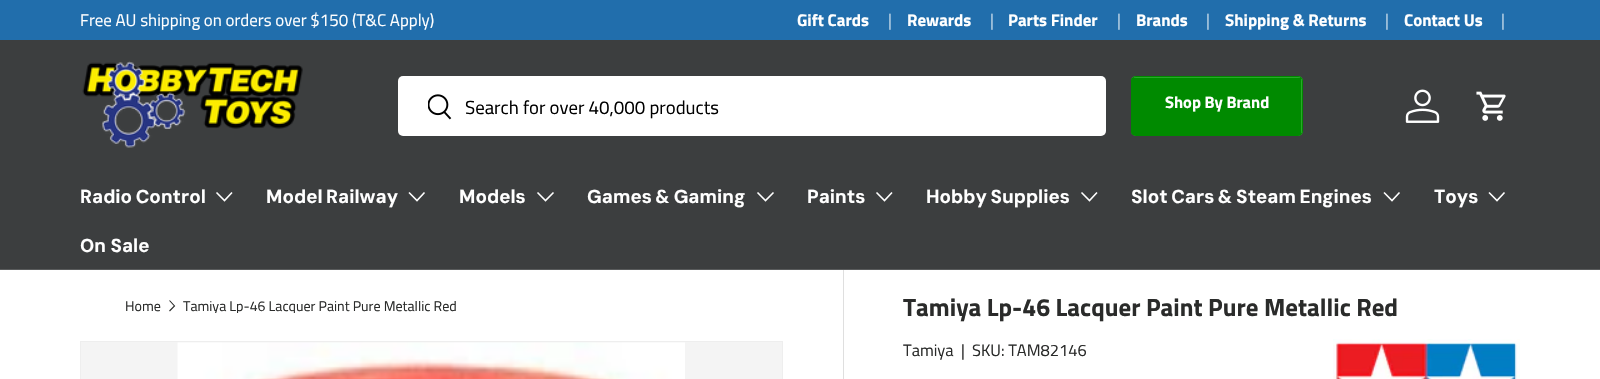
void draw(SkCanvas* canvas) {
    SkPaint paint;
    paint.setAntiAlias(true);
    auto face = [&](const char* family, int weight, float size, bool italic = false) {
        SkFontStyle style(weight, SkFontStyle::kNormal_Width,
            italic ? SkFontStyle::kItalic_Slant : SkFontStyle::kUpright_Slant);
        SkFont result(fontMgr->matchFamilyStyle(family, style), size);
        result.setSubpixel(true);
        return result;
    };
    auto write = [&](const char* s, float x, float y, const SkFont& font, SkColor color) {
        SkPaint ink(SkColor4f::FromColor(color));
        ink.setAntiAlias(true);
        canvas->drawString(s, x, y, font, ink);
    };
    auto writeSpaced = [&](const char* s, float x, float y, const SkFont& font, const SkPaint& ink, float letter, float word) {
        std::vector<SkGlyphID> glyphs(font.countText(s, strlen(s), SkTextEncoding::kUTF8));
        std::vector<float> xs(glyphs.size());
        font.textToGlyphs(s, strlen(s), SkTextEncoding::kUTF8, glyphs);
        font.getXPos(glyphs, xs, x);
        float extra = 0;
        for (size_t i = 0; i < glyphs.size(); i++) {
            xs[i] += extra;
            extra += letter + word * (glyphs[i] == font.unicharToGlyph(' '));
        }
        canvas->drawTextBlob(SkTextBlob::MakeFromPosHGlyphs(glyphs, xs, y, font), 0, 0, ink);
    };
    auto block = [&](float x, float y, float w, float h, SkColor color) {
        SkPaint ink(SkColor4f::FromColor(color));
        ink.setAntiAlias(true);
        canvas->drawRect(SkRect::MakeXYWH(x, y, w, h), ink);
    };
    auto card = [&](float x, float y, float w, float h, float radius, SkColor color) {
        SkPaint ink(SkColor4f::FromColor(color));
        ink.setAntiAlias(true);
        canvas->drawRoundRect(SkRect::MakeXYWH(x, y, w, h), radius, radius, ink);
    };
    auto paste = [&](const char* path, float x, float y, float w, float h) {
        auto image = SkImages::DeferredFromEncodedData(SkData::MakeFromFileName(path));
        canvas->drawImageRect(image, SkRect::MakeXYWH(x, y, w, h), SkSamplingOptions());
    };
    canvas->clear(SK_ColorWHITE);
    block(0, 0, 1600, 40, SkColorSetRGB(33, 110, 172));
    auto kFont1 = face("Titillium Web", 400, 16.9f);
    write("Free AU shipping on orders over $150 (T&C Apply)", 80, 26, kFont1, SK_ColorWHITE);
    auto kFont2 = face("Titillium Web", 700, 16.9f);
    write("Gift Cards", 797, 26, kFont2, SK_ColorWHITE);
    write("|", 888, 26, kFont1, SkColorSetRGB(188, 212, 230));
    write("Rewards", 907, 26, kFont2, SK_ColorWHITE);
    write("|", 990, 26, kFont1, SkColorSetRGB(188, 212, 230));
    write("Parts Finder", 1008, 26, kFont2, SK_ColorWHITE);
    write("|", 1117, 26, kFont1, SkColorSetRGB(188, 212, 230));
    write("Brands", 1136, 26, kFont2, SK_ColorWHITE);
    write("|", 1206, 26, kFont1, SkColorSetRGB(188, 212, 230));
    write("Shipping & Returns", 1225, 26, kFont2, SK_ColorWHITE);
    write("|", 1385, 26, kFont1, SkColorSetRGB(188, 212, 230));
    write("Contact Us", 1404, 26, kFont2, SK_ColorWHITE);
    write("|", 1501, 26, kFont1, SkColorSetRGB(188, 212, 230));
    block(0, 40, 1600, 229, SkColorSetRGB(60, 62, 63));
    block(0, 269, 1600, 1, SkColorSetRGB(89, 91, 92));
    paste("pic1.png", 82, 61, 221, 87);
    card(398, 76, 708, 60, 5, SK_ColorWHITE);
    paste("pic2.png", 428, 94, 24, 26);
    auto kFont3 = face("Titillium Web", 400, 18.75f);
    write("Search for over 40,000 products", 465, 114, kFont3, SK_ColorBLACK);
    card(1131, 76, 172, 60, 5, SkColorSetRGB(41, 168, 41));
    canvas->save();
    canvas->clipPath(SkPathBuilder().moveTo(1136, 76).lineTo(1298, 76).cubicTo(1301, 76, 1303, 78, 1303, 81).lineTo(1303, 131).cubicTo(1303, 134, 1301, 136, 1298, 136).lineTo(1136, 136).cubicTo(1133, 136, 1131, 134, 1131, 131).lineTo(1131, 81).cubicTo(1131, 78, 1133, 76, 1136, 76).close().detach(), true);
    {
        const SkColor colors[] = {SkColorSetRGB(41, 168, 41), SkColorSetRGB(0, 138, 0), SkColorSetRGB(0, 138, 0)};
        const float stops[] = {0.6f, 0.6f, 1};
        const SkPoint ends[] = {{803, 45}, {1293, 167}};
        paint.setShader(SkGradientShader::MakeLinear(ends, colors, stops, 3, SkTileMode::kClamp));
        paint.setAlpha(255);
    }
    canvas->drawRect(SkRect::MakeXYWH(1131, 78, 170, 57), paint);
    canvas->restore();
    paint.setStyle(SkPaint::kStroke_Style);
    paint.setStrokeWidth(1);
    paint.setShader(nullptr);
    paint.setColor(SkColorSetRGB(0, 138, 0));
    canvas->drawRoundRect(SkRect::MakeXYWH(1131.5f, 76.5f, 171, 59), 4.5f, 4.5f, paint);
    auto kFont4 = face("Titillium Web", 700, 16.5f);
    write("Shop By Brand", 1165, 108, kFont4, SK_ColorWHITE);
    paste("pic3.png", 1405, 89, 35, 34);
    paste("pic4.png", 1476, 91, 30, 30);
    auto kFont5 = face("DM Sans", 700, 18.75f);
    paint.setStyle(SkPaint::kFill_Style);
    paint.setColor(SK_ColorWHITE);
    writeSpaced("Radio Control", 80, 203, kFont5, paint, 0, -1);
    paint.setStyle(SkPaint::kStroke_Style);
    paint.setStrokeWidth(1.6f);
    canvas->drawPath(SkPathBuilder().moveTo(232, 192.5f).lineTo(224.5f, 200.5f).lineTo(216.5f, 192.5f).detach(), paint);
    paint.setStyle(SkPaint::kFill_Style);
    writeSpaced("Model Railway", 266, 203, kFont5, paint, 0, -1);
    paint.setStyle(SkPaint::kStroke_Style);
    canvas->drawPath(SkPathBuilder().moveTo(424.5f, 192.5f).lineTo(417, 200.5f).lineTo(409, 192.5f).detach(), paint);
    write("Models", 459, 203, kFont5, SK_ColorWHITE);
    canvas->drawPath(SkPathBuilder().moveTo(553.5f, 192.5f).lineTo(545.5f, 200.5f).lineTo(537.5f, 192.5f).detach(), paint);
    paint.setStyle(SkPaint::kFill_Style);
    writeSpaced("Games & Gaming", 587, 203, kFont5, paint, 0, -1);
    paint.setStyle(SkPaint::kStroke_Style);
    canvas->drawPath(SkPathBuilder().moveTo(773.5f, 192.5f).lineTo(765.5f, 200.5f).lineTo(757.5f, 192.5f).detach(), paint);
    write("Paints", 807, 203, kFont5, SK_ColorWHITE);
    canvas->drawPath(SkPathBuilder().moveTo(892, 192.5f).lineTo(884.5f, 200.5f).lineTo(876.5f, 192.5f).detach(), paint);
    paint.setStyle(SkPaint::kFill_Style);
    writeSpaced("Hobby Supplies", 926, 203, kFont5, paint, 0, -1);
    paint.setStyle(SkPaint::kStroke_Style);
    canvas->drawPath(SkPathBuilder().moveTo(1097, 192.5f).lineTo(1089.5f, 200.5f).lineTo(1081.5f, 192.5f).detach(), paint);
    paint.setStyle(SkPaint::kFill_Style);
    writeSpaced("Slot Cars & Steam Engines", 1131, 203, kFont5, paint, 0, -1);
    paint.setStyle(SkPaint::kStroke_Style);
    canvas->drawPath(SkPathBuilder().moveTo(1399.5f, 192.5f).lineTo(1392, 200.5f).lineTo(1384, 192.5f).detach(), paint);
    write("Toys", 1434, 203, kFont5, SK_ColorWHITE);
    canvas->drawPath(SkPathBuilder().moveTo(1504.5f, 192.5f).lineTo(1497, 200.5f).lineTo(1489, 192.5f).detach(), paint);
    write("On Sale", 80, 252, kFont5, SK_ColorWHITE);
    auto kFont6 = face("Titillium Web", 400, 14.1f);
    write("Home", 125, 311, kFont6, SkColorSetRGB(42, 43, 42));
    paint.setStrokeWidth(1.1f);
    paint.setColor(SkColorSetRGB(42, 43, 42));
    canvas->drawPath(SkPathBuilder().moveTo(169.5f, 300.5f).lineTo(174.5f, 306).lineTo(169.5f, 311).detach(), paint);
    canvas->save();
    canvas->clipRect(SkRect::MakeXYWH(183, 299, 273, 14));
    write("Tamiya Lp-46 Lacquer Paint Pure Metallic Red", 183, 311, kFont6, SkColorSetRGB(42, 43, 42));
    canvas->restore();
    paint.setStyle(SkPaint::kFill_Style);
    paint.setColor(SkColorSetRGB(244, 244, 244));
    canvas->drawRect(SkRect::MakeXYWH(80.5f, 341.5f, 702, 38), paint);
    paint.setStyle(SkPaint::kStroke_Style);
    paint.setStrokeWidth(1);
    paint.setColor(SkColorSetRGB(238, 238, 238));
    canvas->drawRect(SkRect::MakeXYWH(80.5f, 341.5f, 702, 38), paint);
    paste("pic5.png", 177, 342, 508, 37);
    block(843, 270, 1, 109, SkColorSetRGB(223, 223, 223));
    auto kFont7 = face("Titillium Web", 700, 24.9f);
    write("Tamiya Lp-46 Lacquer Paint Pure Metallic Red", 903, 316, kFont7, SkColorSetRGB(42, 43, 42));
    auto kFont8 = face("Titillium Web", 400, 16.5f);
    write("Tamiya", 903, 356, kFont8, SkColorSetRGB(42, 43, 42));
    write("|", 961, 356, kFont8, SkColorSetRGB(42, 43, 42));
    write("SKU: TAM82146", 972, 356, kFont8, SkColorSetRGB(42, 43, 42));
    paste("pic6.png", 1333, 339, 187, 40);
}
